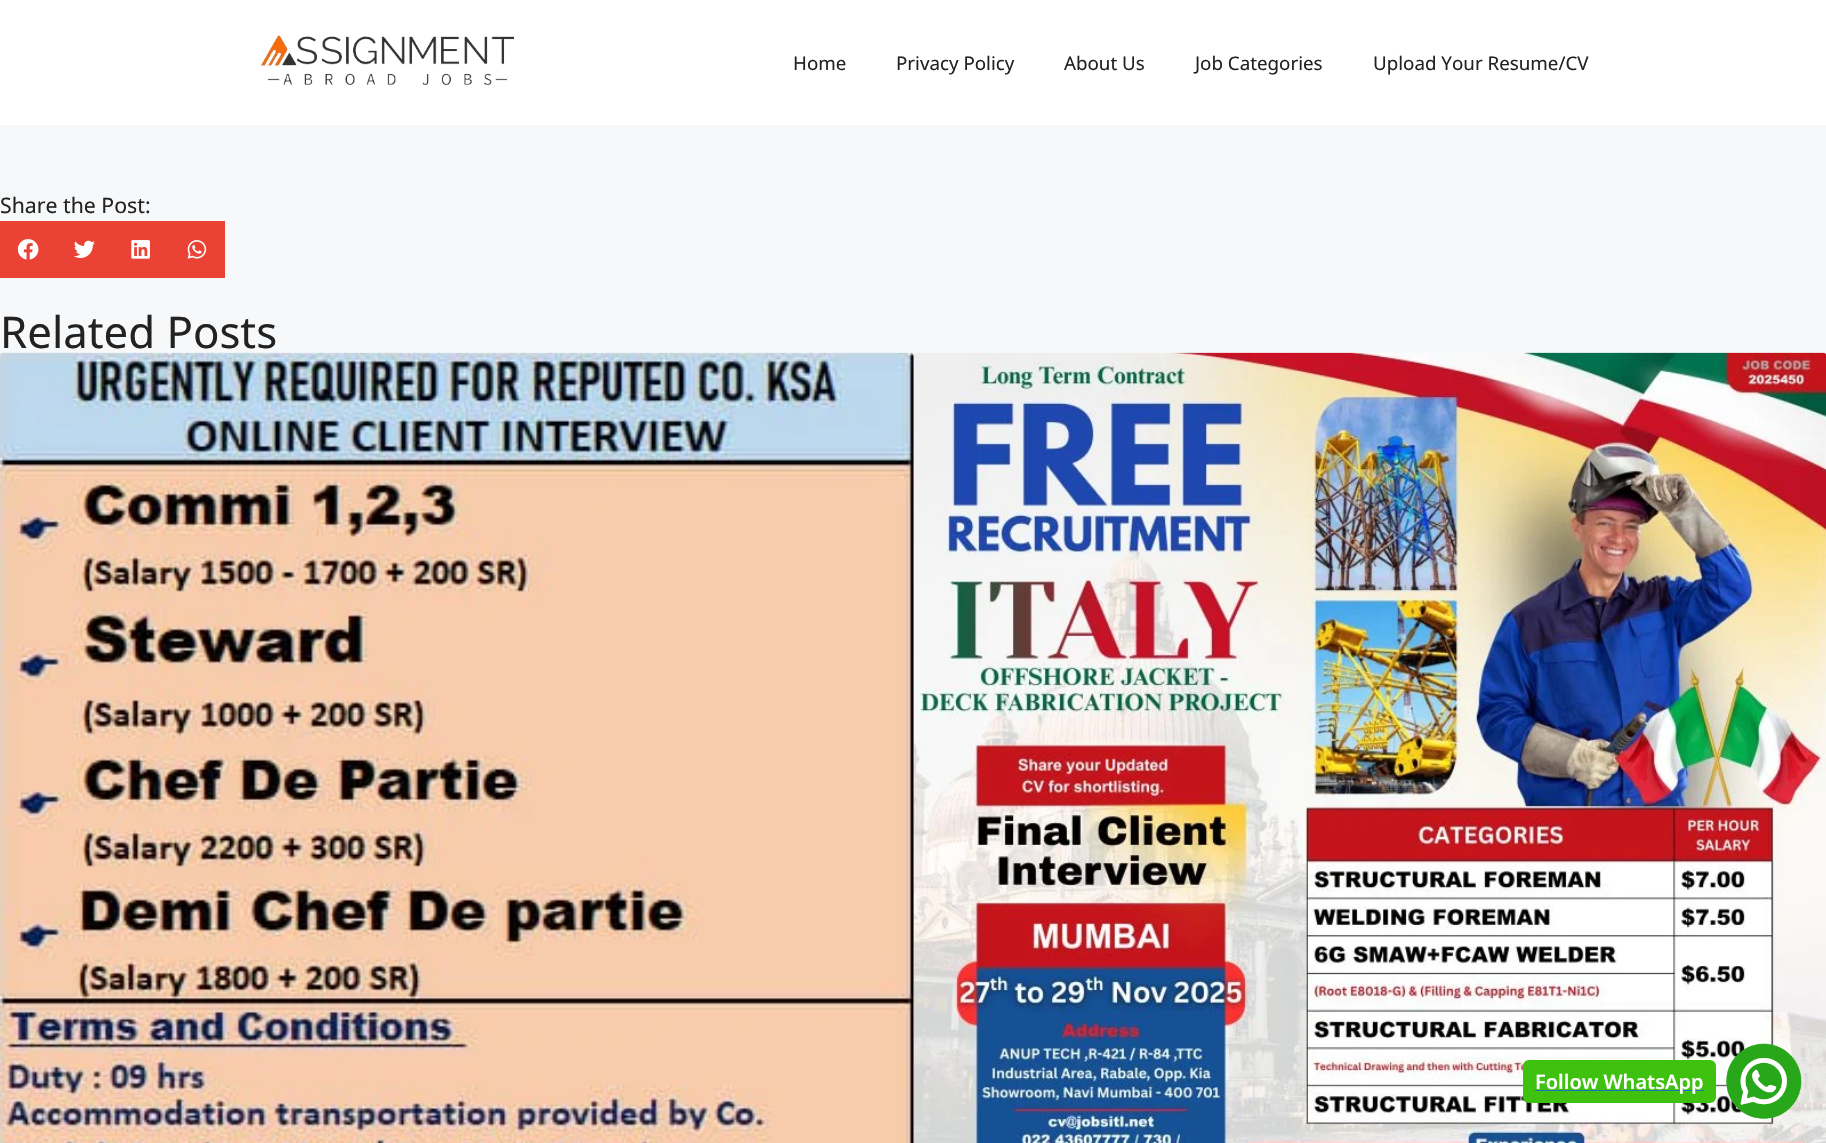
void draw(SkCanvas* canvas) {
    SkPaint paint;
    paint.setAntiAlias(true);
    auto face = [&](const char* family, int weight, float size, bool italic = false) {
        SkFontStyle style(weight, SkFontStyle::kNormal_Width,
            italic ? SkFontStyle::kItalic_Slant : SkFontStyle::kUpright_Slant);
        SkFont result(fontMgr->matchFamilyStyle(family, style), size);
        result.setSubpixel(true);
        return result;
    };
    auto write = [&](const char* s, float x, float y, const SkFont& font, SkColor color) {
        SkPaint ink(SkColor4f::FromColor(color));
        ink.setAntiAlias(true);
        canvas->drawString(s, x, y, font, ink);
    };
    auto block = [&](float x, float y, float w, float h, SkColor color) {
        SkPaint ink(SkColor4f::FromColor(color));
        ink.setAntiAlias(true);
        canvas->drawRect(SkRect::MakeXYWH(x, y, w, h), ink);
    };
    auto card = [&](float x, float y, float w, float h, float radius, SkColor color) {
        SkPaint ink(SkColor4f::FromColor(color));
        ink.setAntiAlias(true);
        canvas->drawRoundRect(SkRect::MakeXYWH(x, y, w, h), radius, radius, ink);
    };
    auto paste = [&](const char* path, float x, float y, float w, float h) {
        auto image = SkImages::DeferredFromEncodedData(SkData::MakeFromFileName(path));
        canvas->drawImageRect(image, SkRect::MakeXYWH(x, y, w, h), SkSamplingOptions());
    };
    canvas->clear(SkColorSetRGB(247, 248, 249));
    block(0, 0, 1826, 125, SK_ColorWHITE);
    paste("pic1.png", 261, 35, 253, 50);
    auto kFont1 = face("Noto Sans", 400, 18.75f);
    write("Home", 793, 70, kFont1, SkColorSetRGB(34, 34, 34));
    write("Privacy Policy", 896, 70, kFont1, SkColorSetRGB(34, 34, 34));
    write("About Us", 1064, 70, kFont1, SkColorSetRGB(34, 34, 34));
    write("Job Categories", 1195, 70, kFont1, SkColorSetRGB(34, 34, 34));
    write("Upload Your Resume/CV", 1373, 70, kFont1, SkColorSetRGB(34, 34, 34));
    auto kFont2 = face("Noto Sans", 400, 21.25f);
    write("Share the Post:", 0, 213, kFont2, SkColorSetRGB(34, 34, 34));
    block(0, 221, 225, 57, SkColorSetRGB(234, 67, 53));
    paste("pic2.png", 18, 239, 21, 21);
    paste("pic3.png", 74, 240, 21, 18);
    paste("pic4.png", 131, 240, 19, 19);
    paste("pic5.png", 187, 240, 20, 19);
    auto kFont3 = face("Noto Sans", 400, 43.75f);
    write("Related Posts", 0, 348, kFont3, SkColorSetRGB(34, 34, 34));
    card(0, 353, 914, 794, 4, SK_ColorWHITE);
    paste("pic6.png", 0, 352, 914, 791);
    paste("pic7.png", 914, 352, 912, 791);
    card(1523, 1060, 193, 43, 6, SkColorSetRGB(63, 194, 15));
    block(1535, 1090, 169, 1, SkColorSetRGB(30, 115, 190));
    auto kFont4 = face("Noto Sans", 600, 20);
    write("Follow WhatsApp", 1535, 1089, kFont4, SK_ColorWHITE);
    paste("pic8.png", 1726, 1043, 76, 76);
}
